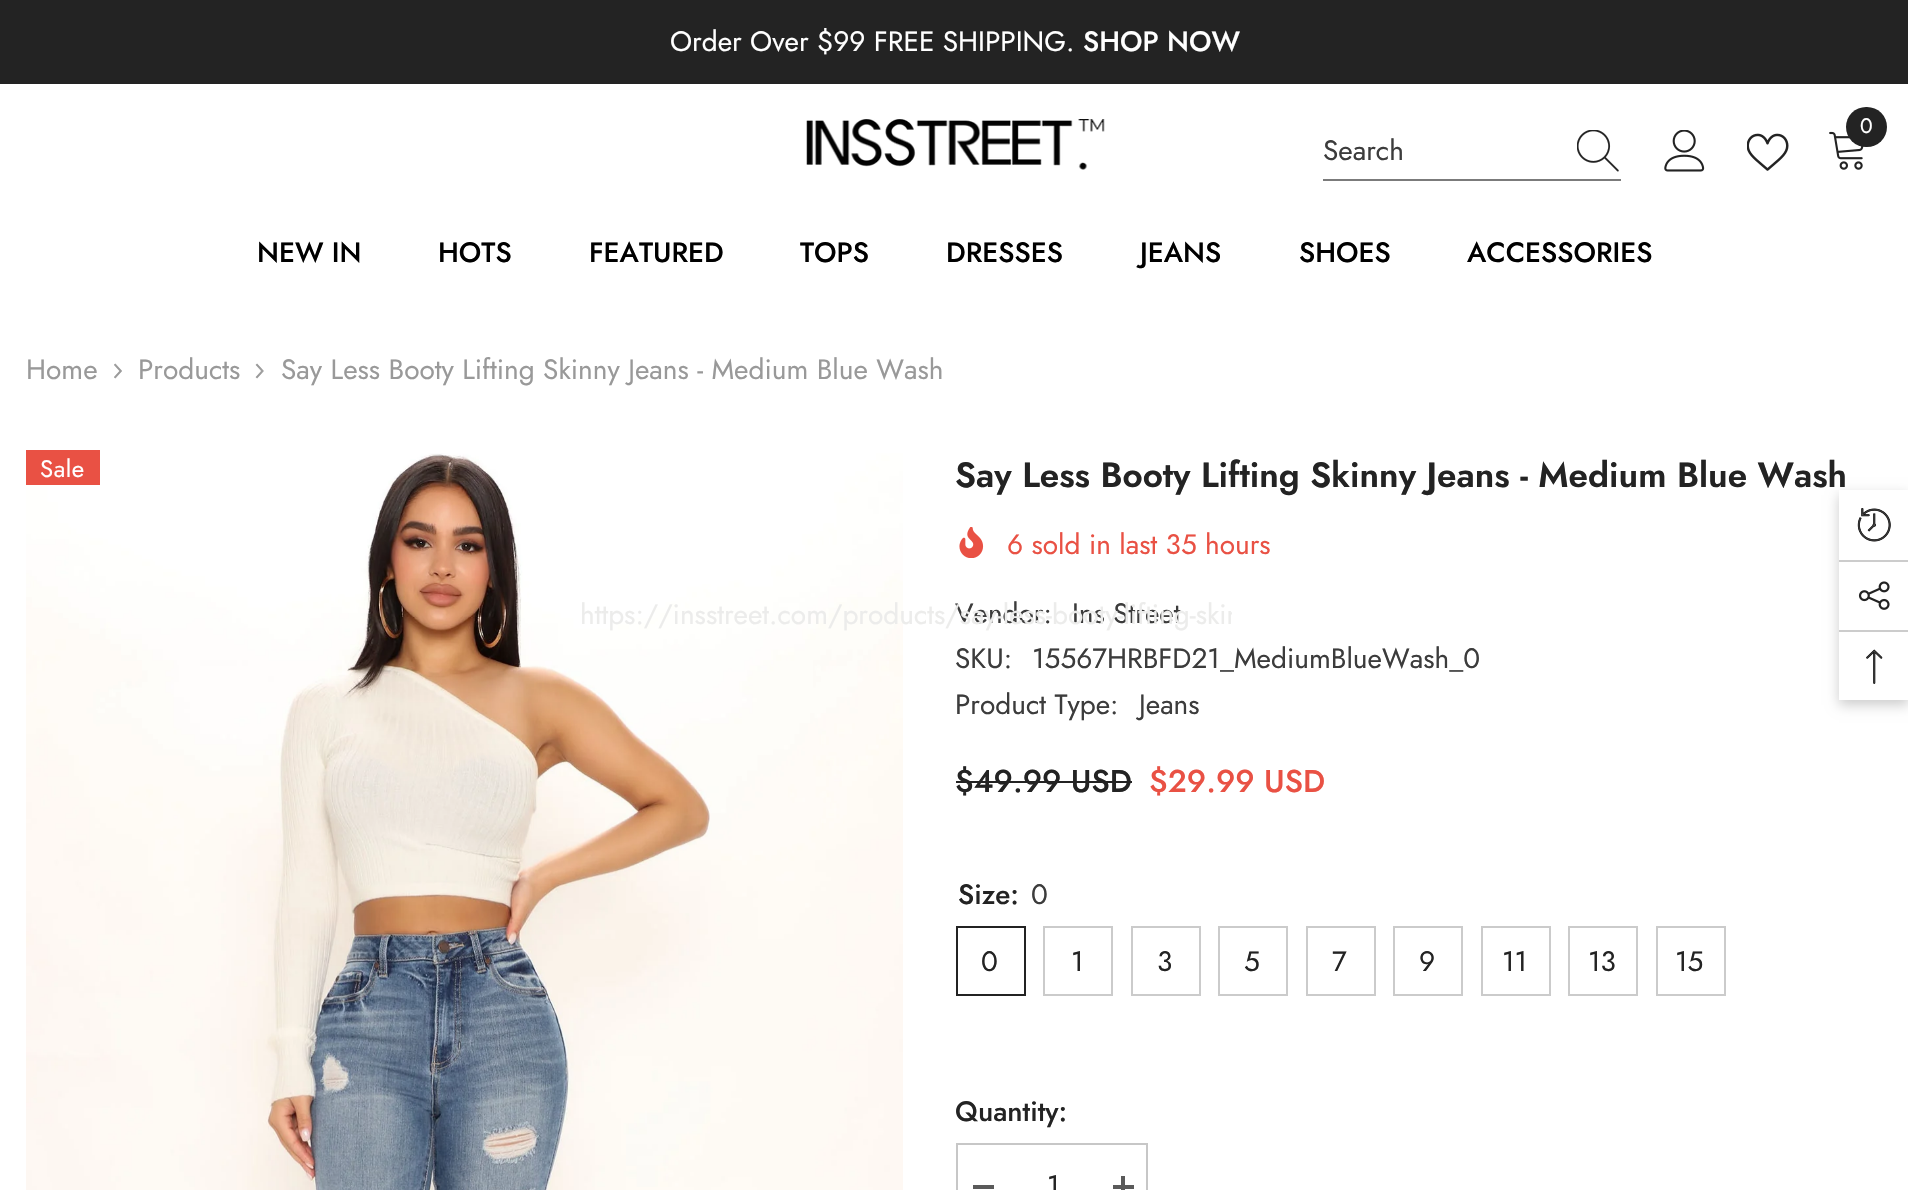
void draw(SkCanvas* canvas) {
    SkPaint paint;
    paint.setAntiAlias(true);
    auto face = [&](const char* family, int weight, float size, bool italic = false) {
        SkFontStyle style(weight, SkFontStyle::kNormal_Width,
            italic ? SkFontStyle::kItalic_Slant : SkFontStyle::kUpright_Slant);
        SkFont result(fontMgr->matchFamilyStyle(family, style), size);
        result.setSubpixel(true);
        return result;
    };
    auto write = [&](const char* s, float x, float y, const SkFont& font, SkColor color) {
        SkPaint ink(SkColor4f::FromColor(color));
        ink.setAntiAlias(true);
        canvas->drawString(s, x, y, font, ink);
    };
    auto writeSpaced = [&](const char* s, float x, float y, const SkFont& font, const SkPaint& ink, float letter, float word) {
        std::vector<SkGlyphID> glyphs(font.countText(s, strlen(s), SkTextEncoding::kUTF8));
        std::vector<float> xs(glyphs.size());
        font.textToGlyphs(s, strlen(s), SkTextEncoding::kUTF8, glyphs);
        font.getXPos(glyphs, xs, x);
        float extra = 0;
        for (size_t i = 0; i < glyphs.size(); i++) {
            xs[i] += extra;
            extra += letter + word * (glyphs[i] == font.unicharToGlyph(' '));
        }
        canvas->drawTextBlob(SkTextBlob::MakeFromPosHGlyphs(glyphs, xs, y, font), 0, 0, ink);
    };
    auto block = [&](float x, float y, float w, float h, SkColor color) {
        SkPaint ink(SkColor4f::FromColor(color));
        ink.setAntiAlias(true);
        canvas->drawRect(SkRect::MakeXYWH(x, y, w, h), ink);
    };
    auto card = [&](float x, float y, float w, float h, float radius, SkColor color) {
        SkPaint ink(SkColor4f::FromColor(color));
        ink.setAntiAlias(true);
        canvas->drawRoundRect(SkRect::MakeXYWH(x, y, w, h), radius, radius, ink);
    };
    auto paste = [&](const char* path, float x, float y, float w, float h) {
        auto image = SkImages::DeferredFromEncodedData(SkData::MakeFromFileName(path));
        canvas->drawImageRect(image, SkRect::MakeXYWH(x, y, w, h), SkSamplingOptions());
    };
    canvas->clear(SK_ColorWHITE);
    block(0, 0, 1908, 84, SkColorSetRGB(35, 35, 35));
    auto kFont1 = face("Jost", 400, 28);
    write("Order Over $99 FREE SHIPPING.", 670, 51, kFont1, SK_ColorWHITE);
    auto kFont2 = face("Jost", 500, 28);
    write("SHOP NOW", 1083, 51, kFont2, SK_ColorWHITE);
    paste("pic1.png", 806, 119, 299, 51);
    paste("pic2.png", 1829, 131, 35, 39);
    card(1846, 107, 41, 40, 20, SkColorSetRGB(35, 35, 35));
    auto kFont3 = face("Jost", 400, 21);
    write("0", 1860, 133, kFont3, SK_ColorWHITE);
    paste("pic3.png", 1664, 130, 41, 42);
    paste("pic4.png", 1747, 133, 42, 38);
    block(1323, 179, 298, 2, SkColorSetRGB(123, 123, 123));
    write("Search", 1323, 160, kFont1, SkColorSetRGB(60, 60, 60));
    paste("pic5.png", 1577, 130, 42, 42);
    write("NEW IN", 257, 262, kFont2, SK_ColorBLACK);
    write("HOTS", 438, 262, kFont2, SK_ColorBLACK);
    write("FEATURED", 589, 262, kFont2, SK_ColorBLACK);
    write("TOPS", 800, 262, kFont2, SK_ColorBLACK);
    write("DRESSES", 946, 262, kFont2, SK_ColorBLACK);
    write("JEANS", 1140, 262, kFont2, SK_ColorBLACK);
    write("SHOES", 1299, 262, kFont2, SK_ColorBLACK);
    write("ACCESSORIES", 1467, 262, kFont2, SK_ColorBLACK);
    write("Home", 26, 379, kFont1, SkColorSetRGB(153, 153, 153));
    paste("pic6.png", 114, 363, 8, 16);
    write("Products", 138, 379, kFont1, SkColorSetRGB(153, 153, 153));
    paste("pic7.png", 255, 363, 9, 16);
    write("Say Less Booty Lifting Skinny Jeans - Medium Blue Wash", 281, 379, kFont1, SkColorSetRGB(153, 153, 153));
    paste("pic8.png", 26, 453, 877, 737);
    block(26, 450, 74, 35, SkColorSetRGB(233, 81, 68));
    auto kFont4 = face("Jost", 400, 24);
    paint.setColor(SK_ColorWHITE);
    writeSpaced("Sale", 40, 477, kFont4, paint, 0.5f, 0);
    auto kFont5 = face("Jost", 600, 35);
    write("Say Less Booty Lifting Skinny Jeans - Medium Blue Wash", 955, 487, kFont5, SkColorSetRGB(35, 35, 35));
    paste("pic9.png", 959, 527, 25, 31);
    write("6 sold in last 35 hours", 1007, 554, kFont1, SkColorSetRGB(233, 81, 68));
    write("Vendor:", 955, 623, kFont1, SkColorSetRGB(60, 60, 60));
    write("Ins Street", 1072, 623, kFont1, SkColorSetRGB(60, 60, 60));
    canvas->save();
    canvas->clipRect(SkRect::MakeXYWH(581, 592, 651, 45));
    write("https://insstreet.com/products/say-less-booty-lifting-skin", 580, 624, kFont1, SkColorSetRGB(236, 236, 235));
    canvas->restore();
    write("Quantity:", 955, 1121, kFont2, SkColorSetRGB(35, 35, 35));
    paint.setStyle(SkPaint::kStroke_Style);
    paint.setStrokeWidth(2);
    paint.setColor(SkColorSetRGB(199, 199, 199));
    canvas->drawRect(SkRect::MakeXYWH(957, 1144, 190, 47), paint);
    block(973, 1185, 21, 4, SkColorSetRGB(90, 90, 90));
    write("1", 1047, 1195, kFont1, SkColorSetRGB(35, 35, 35));
    block(1113, 1185, 21, 4, SkColorSetRGB(90, 90, 90));
    block(1121, 1176, 4, 14, SkColorSetRGB(90, 90, 90));
    write("SKU:", 955, 668, kFont1, SkColorSetRGB(60, 60, 60));
    write("15567HRBFD21_MediumBlueWash_0", 1032, 668, kFont1, SkColorSetRGB(60, 60, 60));
    write("Product Type:", 955, 714, kFont1, SkColorSetRGB(60, 60, 60));
    write("Jeans", 1139, 714, kFont1, SkColorSetRGB(60, 60, 60));
    auto kFont6 = face("Jost", 500, 31.5f);
    write("$49.99 USD", 955, 792, kFont6, SkColorSetRGB(35, 35, 35));
    block(956, 781, 176, 2, SkColorSetRGB(35, 35, 35));
    write("$29.99 USD", 1149, 792, kFont6, SkColorSetRGB(233, 81, 68));
    write("Size:", 958, 904, kFont2, SkColorSetRGB(35, 35, 35));
    write("0", 1031, 904, kFont1, SkColorSetRGB(60, 60, 60));
    paint.setColor(SkColorSetRGB(35, 35, 35));
    canvas->drawRect(SkRect::MakeXYWH(957, 927, 68, 68), paint);
    write("0", 981, 971, kFont1, SkColorSetRGB(35, 35, 35));
    paint.setColor(SkColorSetRGB(203, 203, 203));
    canvas->drawRect(SkRect::MakeXYWH(1044, 927, 68, 68), paint);
    write("1", 1071, 971, kFont1, SkColorSetRGB(35, 35, 35));
    canvas->drawRect(SkRect::MakeXYWH(1132, 927, 68, 68), paint);
    write("3", 1157, 971, kFont1, SkColorSetRGB(35, 35, 35));
    canvas->drawRect(SkRect::MakeXYWH(1219, 927, 68, 68), paint);
    write("5", 1244, 971, kFont1, SkColorSetRGB(35, 35, 35));
    canvas->drawRect(SkRect::MakeXYWH(1307, 927, 68, 68), paint);
    write("7", 1332, 971, kFont1, SkColorSetRGB(35, 35, 35));
    canvas->drawRect(SkRect::MakeXYWH(1394, 927, 68, 68), paint);
    write("9", 1419, 971, kFont1, SkColorSetRGB(35, 35, 35));
    canvas->drawRect(SkRect::MakeXYWH(1482, 927, 68, 68), paint);
    write("11", 1502, 971, kFont1, SkColorSetRGB(35, 35, 35));
    canvas->drawRect(SkRect::MakeXYWH(1569, 927, 68, 68), paint);
    write("13", 1588, 971, kFont1, SkColorSetRGB(35, 35, 35));
    canvas->drawRect(SkRect::MakeXYWH(1657, 927, 68, 68), paint);
    write("15", 1675, 971, kFont1, SkColorSetRGB(35, 35, 35));
    paint.setStyle(SkPaint::kFill_Style);
    paint.setColor(SkColorSetARGB(51, 0, 0, 0));
    paint.setMaskFilter(SkMaskFilter::MakeBlur(kNormal_SkBlurStyle, 6));
    canvas->drawRect(SkRect::MakeXYWH(1839, 495, 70, 210), paint);
    paint.setMaskFilter(nullptr);
    block(1839, 490, 69, 210, SK_ColorWHITE);
    paste("pic10.png", 1857, 508, 34, 34);
    block(1839, 560, 69, 2, SkColorSetRGB(204, 204, 204));
    paste("pic11.png", 1858, 581, 32, 29);
    block(1839, 630, 69, 2, SkColorSetRGB(204, 204, 204));
    paste("pic12.png", 1866, 649, 17, 35);
}
